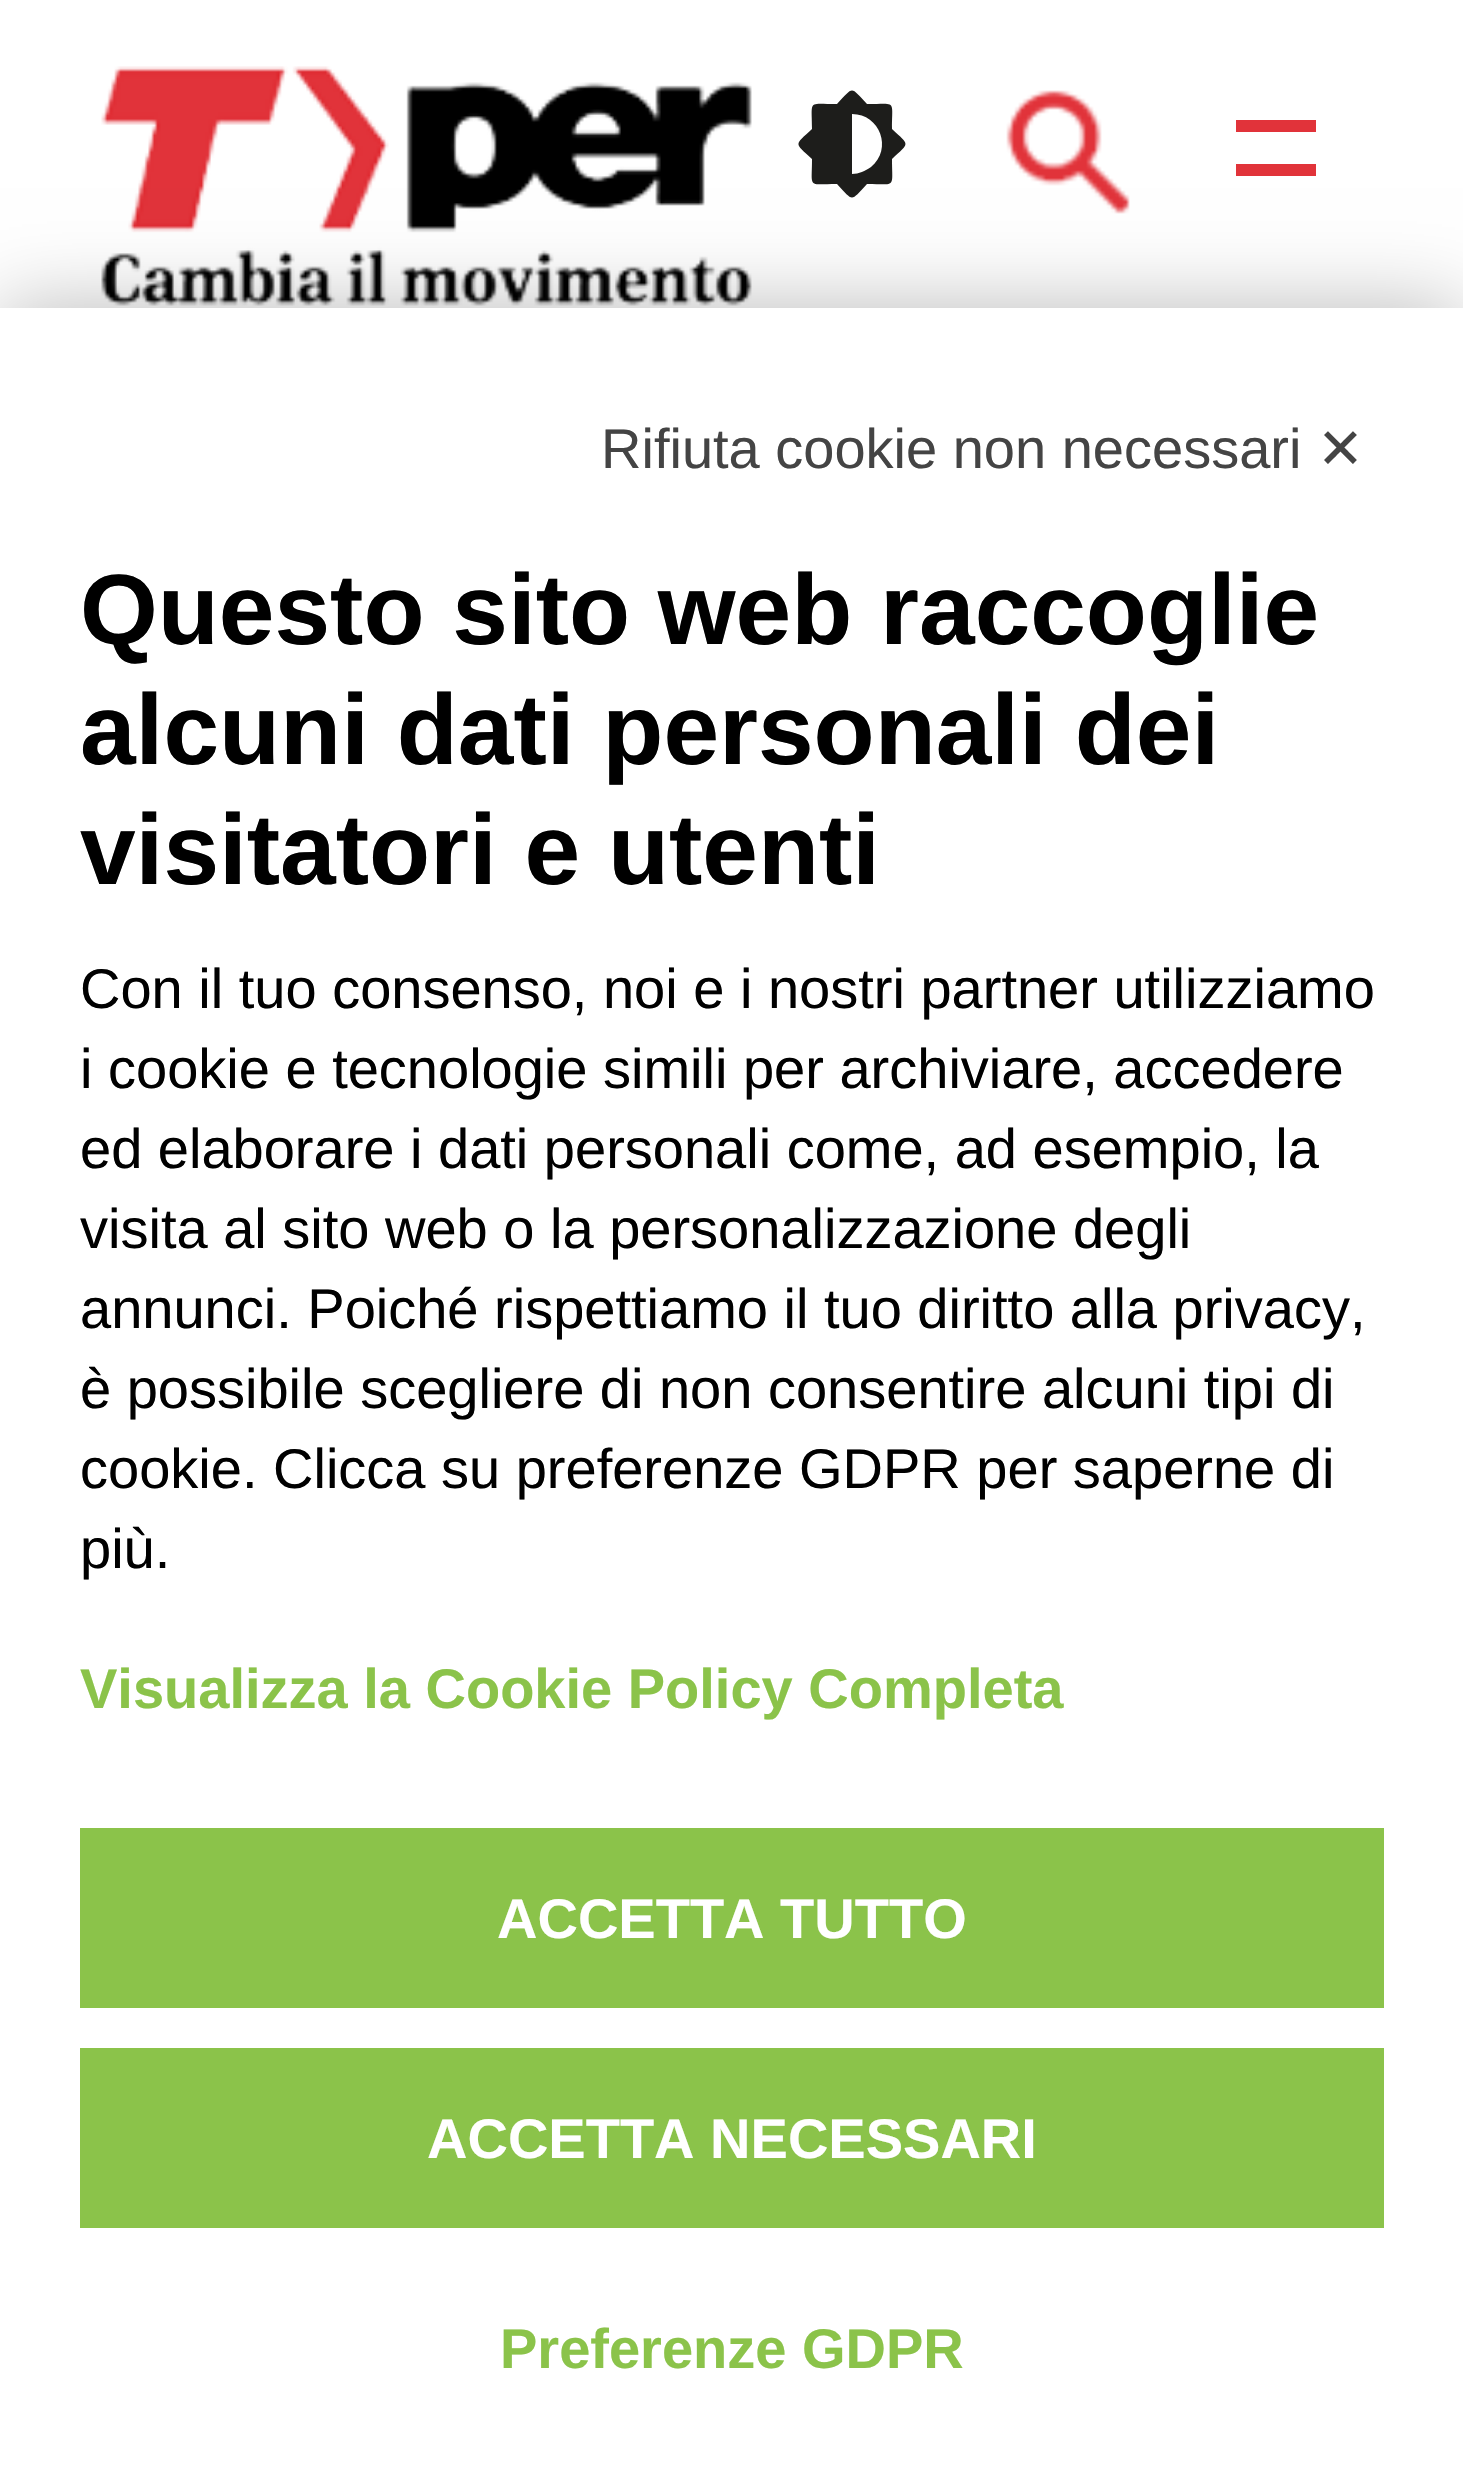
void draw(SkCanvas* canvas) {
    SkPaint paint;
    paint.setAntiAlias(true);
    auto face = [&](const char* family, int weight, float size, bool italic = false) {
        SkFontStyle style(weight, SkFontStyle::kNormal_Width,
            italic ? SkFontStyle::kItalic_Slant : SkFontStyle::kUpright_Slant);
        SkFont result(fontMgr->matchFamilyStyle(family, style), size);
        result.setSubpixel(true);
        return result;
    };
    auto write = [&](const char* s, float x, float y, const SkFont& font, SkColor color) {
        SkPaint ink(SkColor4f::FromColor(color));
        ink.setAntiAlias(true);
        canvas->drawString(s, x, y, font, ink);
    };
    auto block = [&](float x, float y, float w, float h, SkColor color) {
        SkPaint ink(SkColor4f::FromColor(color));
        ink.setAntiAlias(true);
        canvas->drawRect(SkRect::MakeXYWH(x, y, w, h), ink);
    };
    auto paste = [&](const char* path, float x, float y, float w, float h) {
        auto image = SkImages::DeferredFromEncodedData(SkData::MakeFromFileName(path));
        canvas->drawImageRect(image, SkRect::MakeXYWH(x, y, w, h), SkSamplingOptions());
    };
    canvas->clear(SK_ColorWHITE);
    paste("pic1.png", 101, 66, 651, 240);
    paste("pic2.png", 1006, 90, 124, 124);
    block(1236, 120, 80, 12, SkColorSetRGB(225, 51, 58));
    block(1236, 164, 80, 12, SkColorSetRGB(225, 51, 58));
    paint.setColor(SkColorSetRGB(29, 29, 27));
    canvas->drawPath(SkPathBuilder().moveTo(837, 184).cubicTo(854, 202, 850, 202, 867, 184).cubicTo(897, 184, 892, 189, 892, 159).cubicTo(910, 142, 910, 146, 892, 129).cubicTo(892, 99, 897, 104, 867, 104).cubicTo(850, 86, 854, 86, 837, 104).cubicTo(807, 104, 812, 99, 812, 129).cubicTo(794, 146, 794, 142, 812, 159).cubicTo(812, 189, 807, 184, 837, 184).close().moveTo(852, 174).lineTo(852, 114).cubicTo(880, 114, 893, 149, 871, 167).cubicTo(865, 171, 859, 174, 852, 174).close().detach(), paint);
    paint.setColor(SkColorSetARGB(69, 0, 0, 0));
    paint.setMaskFilter(SkMaskFilter::MakeBlur(kNormal_SkBlurStyle, 40));
    canvas->drawRect(SkRect::MakeXYWH(0, 308, 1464, 2160), paint);
    paint.setMaskFilter(nullptr);
    block(0, 308, 1463, 2160, SK_ColorWHITE);
    auto kFont1 = face("Liberation Sans", 400, 56);
    write("Rifiuta cookie non necessari", 601, 468, kFont1, SkColorSetRGB(68, 68, 68));
    auto kFont2 = face("DejaVu Sans", 400, 56);
    write("✕", 1317, 468, kFont2, SkColorSetRGB(68, 68, 68));
    auto kFont3 = face("Liberation Sans", 700, 100);
    write("Questo sito web raccoglie", 80, 644, kFont3, SK_ColorBLACK);
    write("alcuni dati personali dei", 80, 764, kFont3, SK_ColorBLACK);
    write("visitatori e utenti", 80, 884, kFont3, SK_ColorBLACK);
    write("Con il tuo consenso, noi e i nostri partner utilizziamo", 80, 1008, kFont1, SK_ColorBLACK);
    write("i cookie e tecnologie simili per archiviare, accedere", 80, 1088, kFont1, SK_ColorBLACK);
    write("ed elaborare i dati personali come, ad esempio, la", 80, 1168, kFont1, SK_ColorBLACK);
    write("visita al sito web o la personalizzazione degli", 80, 1248, kFont1, SK_ColorBLACK);
    write("annunci. Poiché rispettiamo il tuo diritto alla privacy,", 80, 1328, kFont1, SK_ColorBLACK);
    write("è possibile scegliere di non consentire alcuni tipi di", 80, 1408, kFont1, SK_ColorBLACK);
    write("cookie. Clicca su preferenze GDPR per saperne di", 80, 1488, kFont1, SK_ColorBLACK);
    write("più.", 80, 1568, kFont1, SK_ColorBLACK);
    auto kFont4 = face("Liberation Sans", 700, 56);
    write("Visualizza la Cookie Policy Completa", 80, 1708, kFont4, SkColorSetRGB(139, 195, 74));
    block(80, 1828, 1304, 180, SkColorSetRGB(139, 195, 74));
    write("ACCETTA TUTTO", 497, 1938, kFont4, SK_ColorWHITE);
    block(80, 2048, 1304, 180, SkColorSetRGB(139, 195, 74));
    write("ACCETTA NECESSARI", 427, 2158, kFont4, SK_ColorWHITE);
    write("Preferenze GDPR", 500, 2368, kFont4, SkColorSetRGB(139, 195, 74));
}
